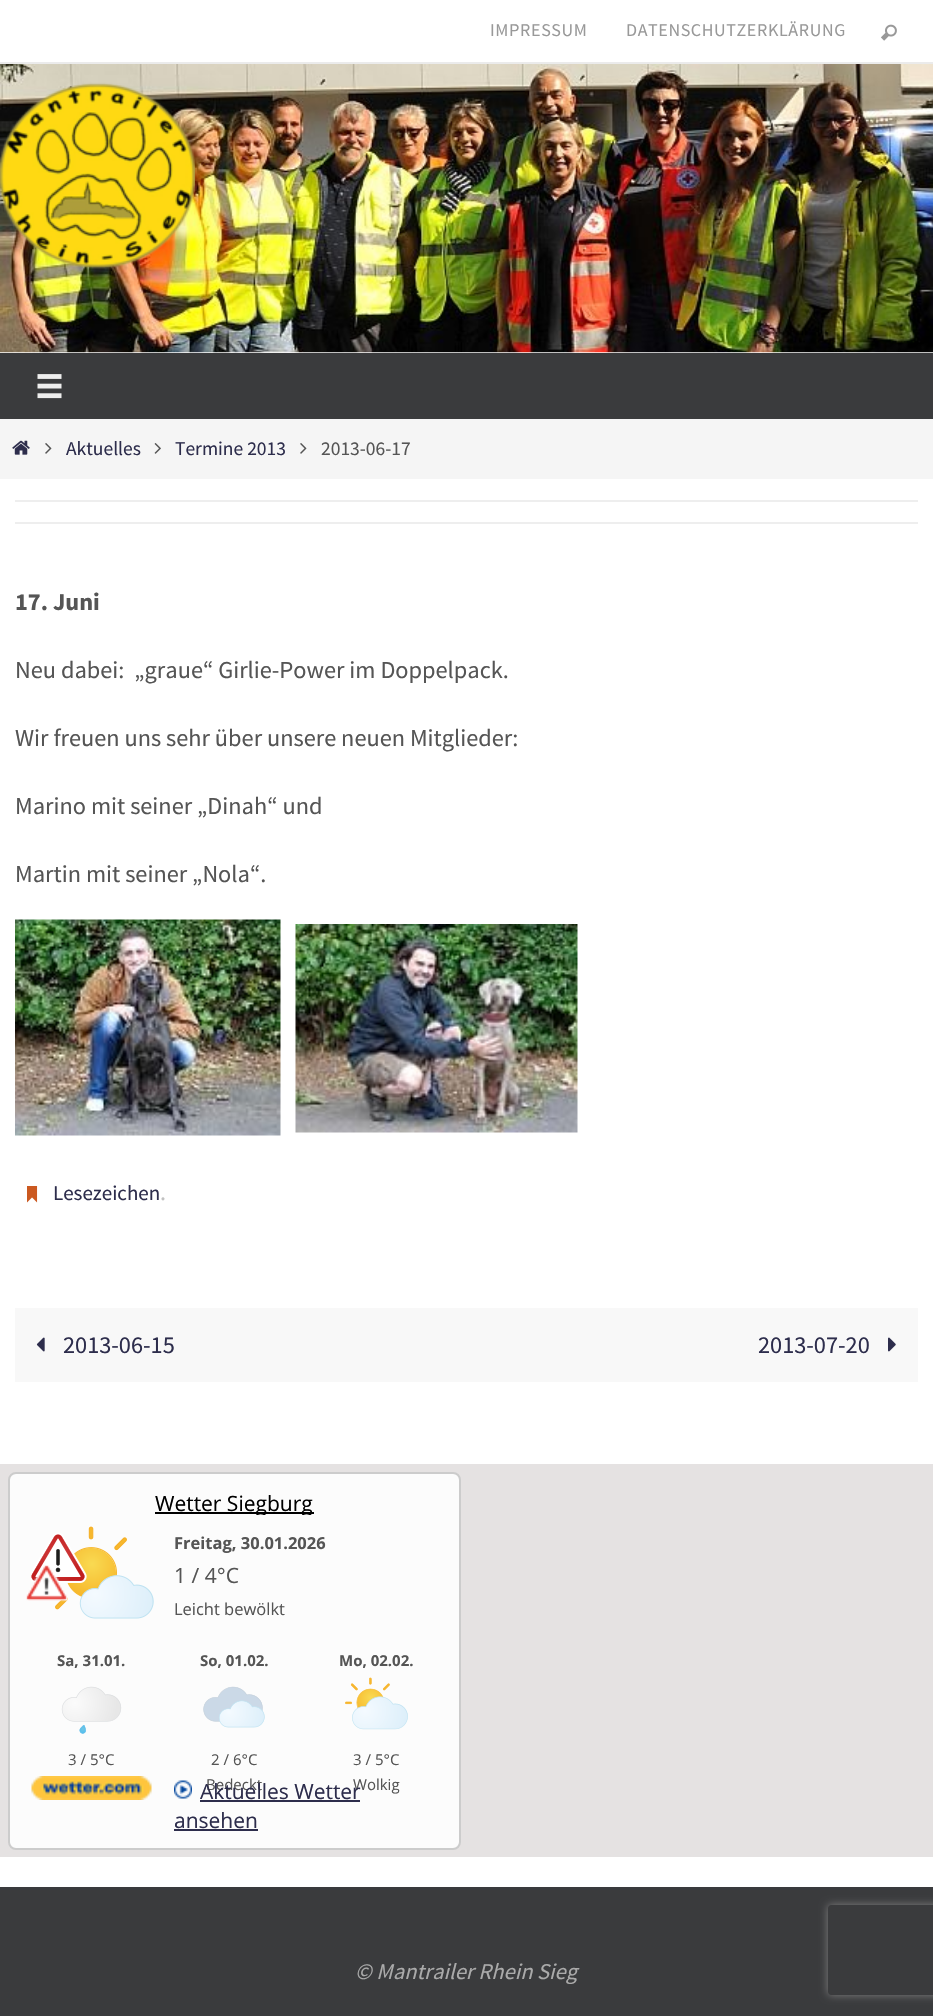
void draw(SkCanvas* canvas) {
    SkPaint paint;
    paint.setAntiAlias(true);
    auto face = [&](const char* family, int weight, float size, bool italic = false) {
        SkFontStyle style(weight, SkFontStyle::kNormal_Width,
            italic ? SkFontStyle::kItalic_Slant : SkFontStyle::kUpright_Slant);
        SkFont result(fontMgr->matchFamilyStyle(family, style), size);
        result.setSubpixel(true);
        return result;
    };
    auto write = [&](const char* s, float x, float y, const SkFont& font, SkColor color) {
        SkPaint ink(SkColor4f::FromColor(color));
        ink.setAntiAlias(true);
        canvas->drawString(s, x, y, font, ink);
    };
    auto writeSpaced = [&](const char* s, float x, float y, const SkFont& font, const SkPaint& ink, float letter, float word) {
        std::vector<SkGlyphID> glyphs(font.countText(s, strlen(s), SkTextEncoding::kUTF8));
        std::vector<float> xs(glyphs.size());
        font.textToGlyphs(s, strlen(s), SkTextEncoding::kUTF8, glyphs);
        font.getXPos(glyphs, xs, x);
        float extra = 0;
        for (size_t i = 0; i < glyphs.size(); i++) {
            xs[i] += extra;
            extra += letter + word * (glyphs[i] == font.unicharToGlyph(' '));
        }
        canvas->drawTextBlob(SkTextBlob::MakeFromPosHGlyphs(glyphs, xs, y, font), 0, 0, ink);
    };
    auto block = [&](float x, float y, float w, float h, SkColor color) {
        SkPaint ink(SkColor4f::FromColor(color));
        ink.setAntiAlias(true);
        canvas->drawRect(SkRect::MakeXYWH(x, y, w, h), ink);
    };
    auto paste = [&](const char* path, float x, float y, float w, float h) {
        auto image = SkImages::DeferredFromEncodedData(SkData::MakeFromFileName(path));
        canvas->drawImageRect(image, SkRect::MakeXYWH(x, y, w, h), SkSamplingOptions());
    };
    canvas->clear(SK_ColorWHITE);
    block(0, 62, 933, 2, SkColorSetRGB(235, 235, 235));
    auto kFont1 = face("Source Sans Pro", 400, 18);
    paint.setColor(SkColorSetRGB(153, 153, 153));
    writeSpaced("IMPRESSUM", 490, 36, kFont1, paint, 0.6f, 0);
    writeSpaced("DATENSCHUTZERKLÄRUNG", 626, 36, kFont1, paint, 0.6f, 0);
    paste("pic1.png", 881, 24, 16, 17);
    paste("pic2.png", 0, 64, 933, 289);
    paste("pic3.png", 0, 82, 195, 187);
    block(0, 353, 933, 66, SkColorSetRGB(58, 59, 61));
    paste("pic4.png", 37, 374, 25, 25);
    block(0, 419, 933, 60, SkColorSetRGB(245, 245, 245));
    paste("pic5.png", 12, 440, 18, 15);
    paste("pic6.png", 45, 443, 7, 11);
    auto kFont2 = face("Source Sans Pro", 400, 19.5f);
    write("Aktuelles", 66, 455, kFont2, SkColorSetRGB(45, 45, 76));
    paste("pic7.png", 154, 443, 7, 11);
    write("Termine 2013", 175, 455, kFont2, SkColorSetRGB(45, 45, 76));
    paste("pic6.png", 300, 443, 7, 11);
    write("2013-06-17", 321, 455, kFont2, SkColorSetRGB(85, 85, 85));
    block(15, 500, 903, 2, SkColorSetRGB(238, 238, 238));
    block(15, 522, 903, 2, SkColorSetRGB(238, 238, 238));
    auto kFont3 = face("Source Sans Pro", 700, 24.3f);
    write("17. Juni", 15, 610, kFont3, SkColorSetRGB(85, 85, 85));
    auto kFont4 = face("Source Sans Pro", 400, 24.3f);
    write("Neu dabei:  „graue“ Girlie-Power im Doppelpack.", 15, 678, kFont4, SkColorSetRGB(85, 85, 85));
    write("Wir freuen uns sehr über unsere neuen Mitglieder:", 15, 746, kFont4, SkColorSetRGB(85, 85, 85));
    write("Marino mit seiner „Dinah“ und", 15, 814, kFont4, SkColorSetRGB(85, 85, 85));
    write("Martin mit seiner „Nola“.", 15, 882, kFont4, SkColorSetRGB(85, 85, 85));
    paste("pic8.png", 15, 919, 266, 217);
    paste("pic9.png", 295, 924, 283, 209);
    paste("pic10.png", 27, 1186, 11, 17);
    auto kFont5 = face("Source Sans Pro", 400, 21);
    write("Lesezeichen", 53, 1200, kFont5, SkColorSetRGB(45, 45, 76));
    auto kFont6 = face("Source Sans Pro", 400, 24);
    write(".", 160, 1200, kFont6, SkColorSetRGB(193, 193, 193));
    block(15, 1308, 903, 74, SkColorSetRGB(248, 248, 248));
    paste("pic11.png", 36, 1337, 9, 15);
    write("2013-06-15", 63, 1353, kFont4, SkColorSetRGB(45, 45, 76));
    write("2013-07-20", 758, 1353, kFont4, SkColorSetRGB(45, 45, 76));
    paste("pic12.png", 888, 1337, 8, 15);
    block(0, 1464, 933, 393, SkColorSetRGB(229, 226, 226));
    paint.setColor(SkColorSetRGB(252, 252, 252));
    canvas->drawRoundRect(SkRect::MakeXYWH(9, 1473, 451, 376), 7, 7, paint);
    paint.setStyle(SkPaint::kStroke_Style);
    paint.setStrokeWidth(2);
    paint.setColor(SkColorSetRGB(204, 204, 204));
    canvas->drawRoundRect(SkRect::MakeXYWH(9, 1473, 451, 376), 7, 7, paint);
    block(155, 1512, 159, 2, SK_ColorBLACK);
    canvas->save();
    canvas->clipRect(SkRect::MakeXYWH(24, 1488, 420, 27));
    auto kFont7 = face("Open Sans", 400, 21);
    write("Wetter Siegburg", 155, 1511, kFont7, SK_ColorBLACK);
    canvas->restore();
    paste("pic13.png", 31, 1526, 123, 93);
    paste("pic14.png", 26, 1565, 42, 37);
    auto kFont8 = face("Open Sans", 700, 16.5f);
    write("Freitag, 30.01.2026", 174, 1549, kFont8, SkColorSetRGB(85, 85, 85));
    write("1 / 4°C", 174, 1583, kFont7, SkColorSetRGB(85, 85, 85));
    auto kFont9 = face("Open Sans", 400, 16.5f);
    write("Leicht bewölkt", 174, 1615, kFont9, SkColorSetRGB(85, 85, 85));
    auto kFont10 = face("Open Sans", 700, 15);
    write("Sa, 31.01.", 57, 1666, kFont10, SkColorSetRGB(85, 85, 85));
    paste("pic15.png", 61, 1686, 61, 48);
    auto kFont11 = face("Open Sans", 400, 15);
    write("3 / 5°C", 68, 1765, kFont11, SkColorSetRGB(85, 85, 85));
    write("So, 01.02.", 200, 1666, kFont10, SkColorSetRGB(85, 85, 85));
    paste("pic16.png", 203, 1686, 62, 42);
    write("2 / 6°C", 211, 1765, kFont11, SkColorSetRGB(85, 85, 85));
    write("Bedeckt", 206, 1790, kFont11, SkColorSetRGB(85, 85, 85));
    write("Mo, 02.02.", 339, 1666, kFont10, SkColorSetRGB(85, 85, 85));
    paste("pic17.png", 345, 1677, 63, 53);
    write("3 / 5°C", 353, 1765, kFont11, SkColorSetRGB(85, 85, 85));
    write("Wolkig", 353, 1790, kFont11, SkColorSetRGB(85, 85, 85));
    paste("pic18.png", 31, 1776, 121, 24);
    paste("pic19.png", 174, 1780, 18, 19);
    write("Aktuelles Wetter", 200, 1799, kFont7, SkColorSetRGB(45, 45, 76));
    block(200, 1800, 160, 2, SkColorSetRGB(45, 45, 76));
    write("ansehen", 174, 1828, kFont7, SkColorSetRGB(45, 45, 76));
    block(174, 1829, 84, 2, SkColorSetRGB(45, 45, 76));
    block(0, 1887, 933, 129, SkColorSetRGB(58, 59, 61));
    auto kFont12 = face("Source Sans Pro", 400, 22.5f, true);
    write("© Mantrailer Rhein Sieg", 355, 1979, kFont12, SkColorSetRGB(170, 170, 170));
    canvas->save();
    canvas->clipPath(SkPathBuilder(SkPathFillType::kEvenOdd).moveTo(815, 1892).lineTo(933, 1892).lineTo(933, 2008).lineTo(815, 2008).close().moveTo(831, 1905).lineTo(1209, 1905).cubicTo(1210.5f, 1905, 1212, 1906.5f, 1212, 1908).lineTo(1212, 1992).cubicTo(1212, 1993.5f, 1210.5f, 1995, 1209, 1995).lineTo(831, 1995).cubicTo(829.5f, 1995, 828, 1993.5f, 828, 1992).lineTo(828, 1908).cubicTo(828, 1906.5f, 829.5f, 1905, 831, 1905).close().detach(), true);
    paint.setStyle(SkPaint::kFill_Style);
    paint.setColor(SkColorSetRGB(128, 128, 128));
    paint.setMaskFilter(SkMaskFilter::MakeBlur(kNormal_SkBlurStyle, 4));
    canvas->drawRoundRect(SkRect::MakeXYWH(828, 1905, 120, 90), 3, 3, paint);
    paint.setMaskFilter(nullptr);
    canvas->restore();
}
